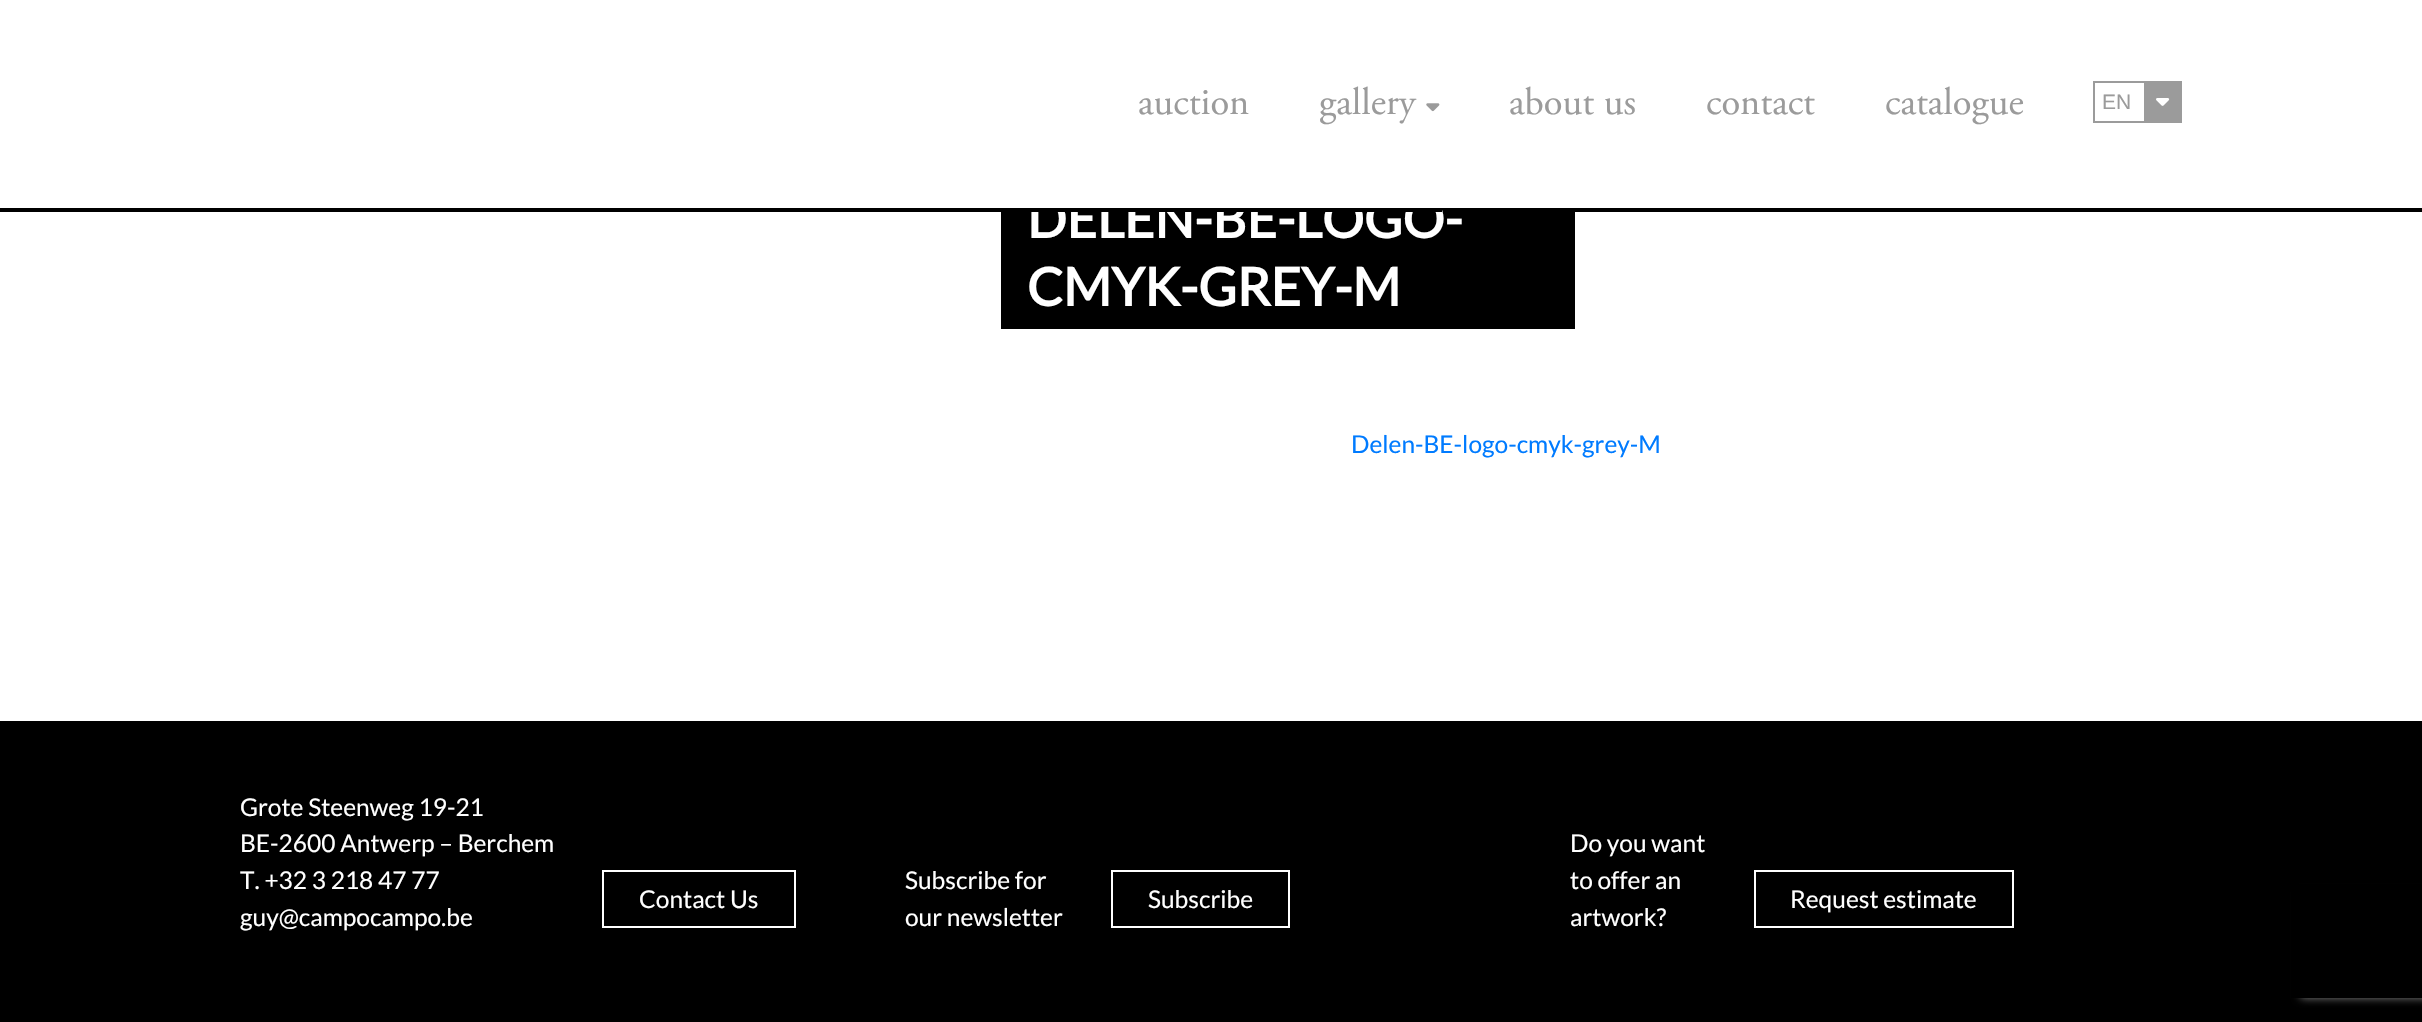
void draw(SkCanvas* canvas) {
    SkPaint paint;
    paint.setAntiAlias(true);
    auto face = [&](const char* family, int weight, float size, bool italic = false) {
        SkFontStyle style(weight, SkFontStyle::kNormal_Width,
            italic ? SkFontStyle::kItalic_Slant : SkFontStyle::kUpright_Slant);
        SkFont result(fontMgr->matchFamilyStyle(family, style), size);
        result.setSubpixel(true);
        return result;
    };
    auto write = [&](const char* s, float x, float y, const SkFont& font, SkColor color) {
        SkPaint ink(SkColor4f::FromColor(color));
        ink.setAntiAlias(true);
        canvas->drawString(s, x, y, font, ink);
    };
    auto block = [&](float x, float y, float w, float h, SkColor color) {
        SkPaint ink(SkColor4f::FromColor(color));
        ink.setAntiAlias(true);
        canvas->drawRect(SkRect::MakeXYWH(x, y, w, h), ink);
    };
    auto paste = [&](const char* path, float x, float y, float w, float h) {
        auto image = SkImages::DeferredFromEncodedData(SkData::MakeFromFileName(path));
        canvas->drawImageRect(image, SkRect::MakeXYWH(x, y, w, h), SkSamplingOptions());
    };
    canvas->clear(SK_ColorBLACK);
    block(0, 212, 2422, 509, SK_ColorWHITE);
    block(0, 0, 2422, 208, SK_ColorWHITE);
    block(1001, 212, 574, 117, SK_ColorBLACK);
    auto kFont1 = face("Lato", 700, 52.5f);
    write("DELEN-BE-LOGO-", 1027, 238, kFont1, SK_ColorWHITE);
    block(1031, 208, 411, 4, SK_ColorBLACK);
    auto kFont2 = face("Adobe Garamond", 400, 38.5f);
    write("auction", 1138, 114, kFont2, SkColorSetRGB(155, 155, 155));
    write("gallery", 1319, 114, kFont2, SkColorSetRGB(155, 155, 155));
    paste("pic1.png", 1426, 103, 14, 9);
    write("about us", 1509, 114, kFont2, SkColorSetRGB(155, 155, 155));
    write("contact", 1706, 114, kFont2, SkColorSetRGB(155, 155, 155));
    write("catalogue", 1885, 114, kFont2, SkColorSetRGB(155, 155, 155));
    paint.setStyle(SkPaint::kStroke_Style);
    paint.setStrokeWidth(2);
    paint.setColor(SkColorSetRGB(155, 155, 155));
    canvas->drawRect(SkRect::MakeXYWH(2094, 82, 87, 40), paint);
    auto kFont3 = face("Liberation Sans", 400, 21);
    write("EN", 2102, 109, kFont3, SkColorSetRGB(155, 155, 155));
    block(2144, 83, 36, 38, SkColorSetRGB(155, 155, 155));
    paste("pic2.png", 2156, 98, 14, 8);
    write("CMYK-GREY-M", 1027, 306, kFont1, SK_ColorWHITE);
    auto kFont4 = face("Lato", 400, 24.5f);
    write("Delen-BE-logo-cmyk-grey-M", 1351, 453, kFont4, SkColorSetRGB(0, 123, 255));
    paint.setStyle(SkPaint::kFill_Style);
    paint.setColor(SkColorSetRGB(128, 128, 128));
    paint.setMaskFilter(SkMaskFilter::MakeBlur(kNormal_SkBlurStyle, 4.5f));
    canvas->drawRoundRect(SkRect::MakeXYWH(2300, 893, 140, 105), 4, 4, paint);
    paint.setMaskFilter(nullptr);
    block(2291, 884, 131, 114, SK_ColorBLACK);
    write("Grote Steenweg 19-21", 240, 816, kFont4, SK_ColorWHITE);
    write("BE-2600 Antwerp – Berchem", 240, 852, kFont4, SK_ColorWHITE);
    write("T. +32 3 218 47 77", 240, 889, kFont4, SK_ColorWHITE);
    write("guy@campocampo.be", 240, 926, kFont4, SK_ColorWHITE);
    paint.setStyle(SkPaint::kStroke_Style);
    paint.setColor(SK_ColorWHITE);
    canvas->drawRect(SkRect::MakeXYWH(603, 871, 192, 56), paint);
    write("Contact Us", 639, 908, kFont4, SK_ColorWHITE);
    write("Subscribe for", 905, 889, kFont4, SK_ColorWHITE);
    write("our newsletter", 905, 926, kFont4, SK_ColorWHITE);
    canvas->drawRect(SkRect::MakeXYWH(1112, 871, 177, 56), paint);
    write("Subscribe", 1148, 908, kFont4, SK_ColorWHITE);
    write("Do you want", 1570, 852, kFont4, SK_ColorWHITE);
    write("to offer an", 1570, 889, kFont4, SK_ColorWHITE);
    write("artwork?", 1570, 926, kFont4, SK_ColorWHITE);
    canvas->drawRect(SkRect::MakeXYWH(1755, 871, 258, 56), paint);
    write("Request estimate", 1790, 908, kFont4, SK_ColorWHITE);
}
